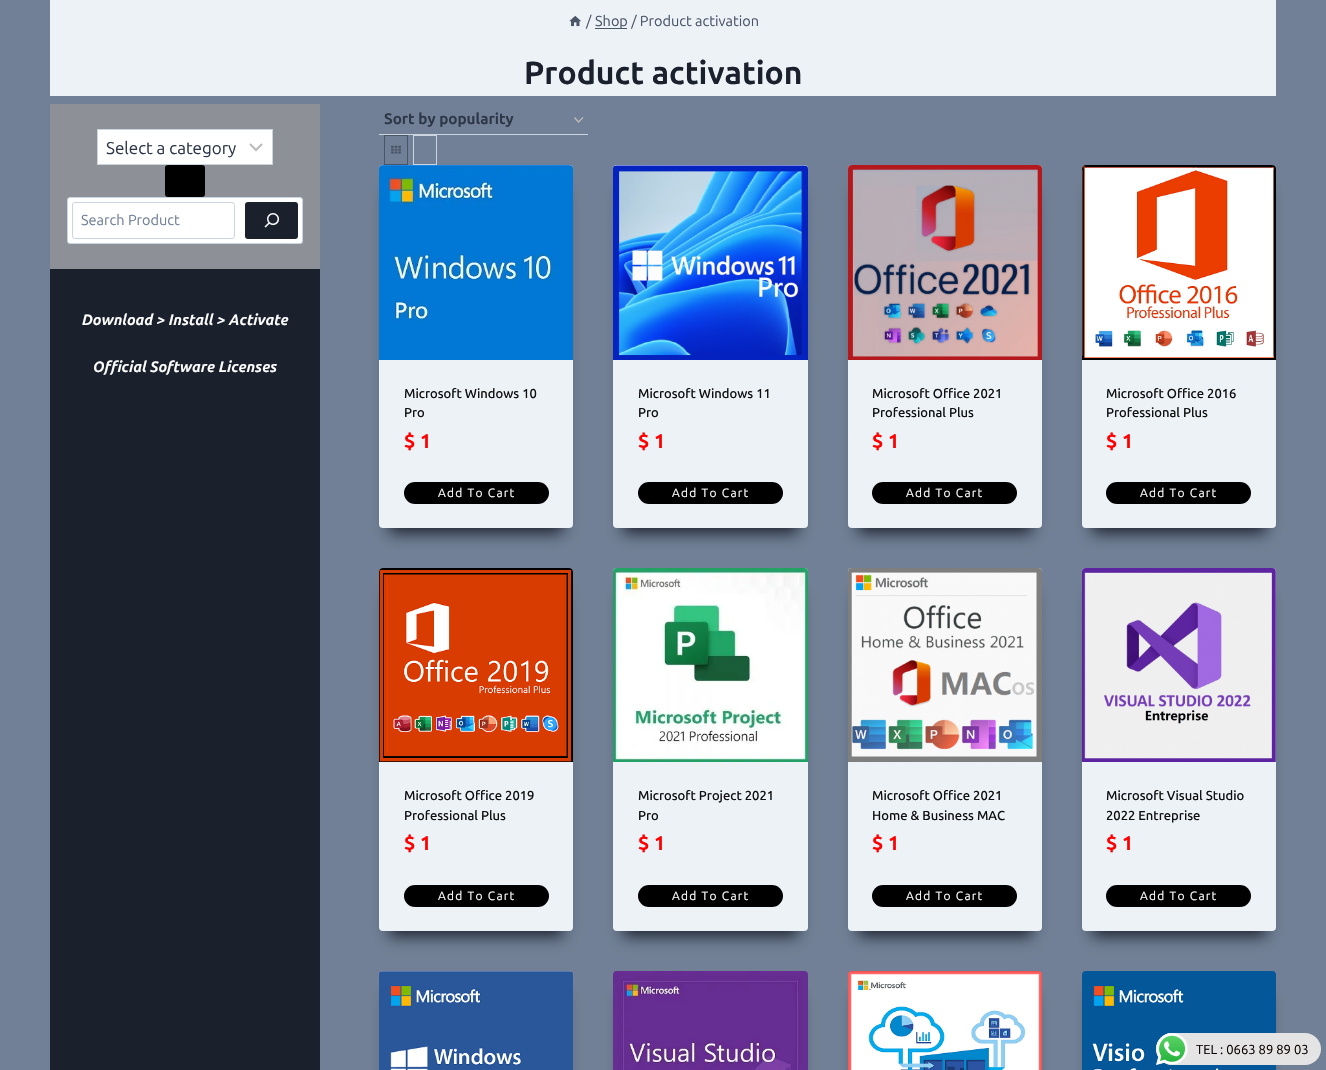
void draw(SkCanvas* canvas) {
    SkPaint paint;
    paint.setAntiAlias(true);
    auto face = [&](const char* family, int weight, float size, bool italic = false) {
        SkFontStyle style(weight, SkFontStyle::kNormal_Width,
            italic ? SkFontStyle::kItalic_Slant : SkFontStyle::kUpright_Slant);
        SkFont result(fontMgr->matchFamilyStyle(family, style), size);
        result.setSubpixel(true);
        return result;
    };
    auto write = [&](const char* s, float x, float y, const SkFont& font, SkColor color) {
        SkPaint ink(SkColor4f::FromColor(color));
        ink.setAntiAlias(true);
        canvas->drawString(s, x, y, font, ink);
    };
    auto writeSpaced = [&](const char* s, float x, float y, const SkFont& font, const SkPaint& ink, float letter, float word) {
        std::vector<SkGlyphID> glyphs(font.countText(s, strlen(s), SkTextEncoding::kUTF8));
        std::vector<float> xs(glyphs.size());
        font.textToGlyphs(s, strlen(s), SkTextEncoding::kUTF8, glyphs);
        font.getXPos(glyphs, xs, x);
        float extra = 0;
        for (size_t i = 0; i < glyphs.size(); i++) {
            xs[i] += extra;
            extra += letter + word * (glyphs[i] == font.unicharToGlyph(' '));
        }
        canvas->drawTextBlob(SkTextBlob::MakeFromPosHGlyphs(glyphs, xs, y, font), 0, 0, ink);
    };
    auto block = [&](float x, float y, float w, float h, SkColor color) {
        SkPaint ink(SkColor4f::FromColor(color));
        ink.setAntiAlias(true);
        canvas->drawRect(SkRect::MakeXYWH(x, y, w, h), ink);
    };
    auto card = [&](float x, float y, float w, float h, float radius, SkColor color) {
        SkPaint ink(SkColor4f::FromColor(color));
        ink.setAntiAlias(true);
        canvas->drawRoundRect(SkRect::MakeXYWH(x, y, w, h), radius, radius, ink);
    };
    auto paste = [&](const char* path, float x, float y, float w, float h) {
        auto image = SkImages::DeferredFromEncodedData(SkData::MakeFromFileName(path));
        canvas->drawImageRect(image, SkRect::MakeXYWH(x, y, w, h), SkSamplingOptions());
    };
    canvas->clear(SkColorSetRGB(113, 128, 150));
    block(50, 0, 1226, 96, SkColorSetRGB(237, 242, 247));
    paste("pic1.png", 569, 15, 12, 12);
    auto kFont1 = face("Ubuntu", 400, 14.5f);
    write("/", 586, 26, kFont1, SkColorSetRGB(74, 85, 104));
    block(595, 28, 32, 1, SkColorSetRGB(74, 85, 104));
    write("Shop / Product activation", 595, 26, kFont1, SkColorSetRGB(74, 85, 104));
    auto kFont2 = face("Ubuntu", 700, 32);
    write("Product activation", 524, 84, kFont2, SkColorSetRGB(26, 32, 44));
    block(50, 269, 270, 801, SkColorSetRGB(26, 32, 44));
    block(50, 104, 270, 165, SkColorSetRGB(141, 144, 150));
    block(98, 130, 174, 34, SK_ColorWHITE);
    paint.setStyle(SkPaint::kStroke_Style);
    paint.setStrokeWidth(2);
    paint.setColor(SkColorSetRGB(187, 187, 187));
    canvas->drawPath(SkPathBuilder().moveTo(250, 144).lineTo(256, 150).lineTo(262, 144).detach(), paint);
    paint.setStrokeWidth(1);
    paint.setColor(SkColorSetRGB(203, 213, 224));
    canvas->drawRect(SkRect::MakeXYWH(97.5f, 129.5f, 175, 35), paint);
    auto kFont3 = face("Ubuntu", 400, 17);
    write("Select a category", 106, 154, kFont3, SkColorSetRGB(45, 55, 72));
    card(165, 165, 40, 32, 3, SK_ColorBLACK);
    paint.setStyle(SkPaint::kFill_Style);
    paint.setColor(SK_ColorWHITE);
    canvas->drawRoundRect(SkRect::MakeXYWH(67.5f, 197.5f, 235, 46), 2.5f, 2.5f, paint);
    paint.setStyle(SkPaint::kStroke_Style);
    paint.setColor(SkColorSetRGB(203, 213, 224));
    canvas->drawRoundRect(SkRect::MakeXYWH(67.5f, 197.5f, 235, 46), 2.5f, 2.5f, paint);
    canvas->drawRoundRect(SkRect::MakeXYWH(72.5f, 202.5f, 162, 36), 2.5f, 2.5f, paint);
    write("Search Product", 81, 225, kFont1, SkColorSetRGB(113, 128, 150));
    card(245, 202, 53, 37, 3, SkColorSetRGB(26, 32, 44));
    paste("pic2.png", 264, 213, 16, 15);
    auto kFont4 = face("Ubuntu", 700, 15, true);
    write("Download > Install > Activate", 82, 325, kFont4, SK_ColorWHITE);
    write("Official Software Licenses", 93, 372, kFont4, SK_ColorWHITE);
    paint.setStrokeWidth(1.4f);
    paint.setColor(SkColorSetRGB(187, 187, 187));
    canvas->drawPath(SkPathBuilder().moveTo(574.5f, 117.5f).lineTo(578.5f, 122).lineTo(583, 117.5f).detach(), paint);
    block(379, 134, 209, 1, SkColorSetRGB(203, 213, 224));
    auto kFont5 = face("Ubuntu", 700, 15.25f);
    write("Sort by popularity", 384, 124, kFont5, SkColorSetRGB(45, 55, 72));
    paint.setStrokeWidth(1);
    paint.setColor(SkColorSetRGB(74, 85, 104));
    canvas->drawRect(SkRect::MakeXYWH(384.5f, 135.5f, 23, 29), paint);
    paste("pic3.png", 391, 145, 10, 9);
    paint.setColor(SkColorSetRGB(203, 213, 224));
    canvas->drawRect(SkRect::MakeXYWH(413.5f, 135.5f, 23, 29), paint);
    paint.setStyle(SkPaint::kFill_Style);
    paint.setColor(SkColorSetRGB(26, 32, 44));
    paint.setMaskFilter(SkMaskFilter::MakeBlur(kNormal_SkBlurStyle, 7.5f));
    canvas->drawRect(SkRect::MakeXYWH(389, 190, 174, 343), paint);
    paint.setMaskFilter(nullptr);
    card(379, 165, 194, 363, 4, SkColorSetRGB(237, 242, 247));
    paste("pic4.png", 379, 165, 194, 195);
    auto kFont6 = face("Ubuntu", 500, 13);
    write("Microsoft Windows 10", 404, 398, kFont6, SkColorSetRGB(16, 16, 16));
    write("Pro", 404, 417, kFont6, SkColorSetRGB(16, 16, 16));
    auto kFont7 = face("Ubuntu", 700, 20);
    write("$ 1", 404, 448, kFont7, SkColorSetRGB(255, 0, 0));
    card(404, 482, 145, 22, 11, SK_ColorBLACK);
    auto kFont8 = face("Ubuntu", 400, 12);
    paint.setColor(SK_ColorWHITE);
    writeSpaced("Add To Cart", 438, 497, kFont8, paint, 1.25f, 0);
    paint.setColor(SkColorSetRGB(26, 32, 44));
    paint.setMaskFilter(SkMaskFilter::MakeBlur(kNormal_SkBlurStyle, 7.5f));
    canvas->drawRect(SkRect::MakeXYWH(623, 190, 175, 343), paint);
    paint.setMaskFilter(nullptr);
    card(613, 165, 195, 363, 4, SkColorSetRGB(237, 242, 247));
    paste("pic5.png", 613, 165, 195, 195);
    write("Microsoft Windows 11", 638, 398, kFont6, SkColorSetRGB(16, 16, 16));
    write("Pro", 638, 417, kFont6, SkColorSetRGB(16, 16, 16));
    write("$ 1", 638, 448, kFont7, SkColorSetRGB(255, 0, 0));
    card(638, 482, 145, 22, 11, SK_ColorBLACK);
    paint.setColor(SK_ColorWHITE);
    writeSpaced("Add To Cart", 672, 497, kFont8, paint, 1.25f, 0);
    paint.setColor(SkColorSetRGB(26, 32, 44));
    paint.setMaskFilter(SkMaskFilter::MakeBlur(kNormal_SkBlurStyle, 7.5f));
    canvas->drawRect(SkRect::MakeXYWH(858, 190, 174, 343), paint);
    paint.setMaskFilter(nullptr);
    card(848, 165, 194, 363, 4, SkColorSetRGB(237, 242, 247));
    paste("pic6.png", 848, 165, 194, 195);
    write("Microsoft Office 2021", 872, 398, kFont6, SkColorSetRGB(16, 16, 16));
    write("Professional Plus", 872, 417, kFont6, SkColorSetRGB(16, 16, 16));
    write("$ 1", 872, 448, kFont7, SkColorSetRGB(255, 0, 0));
    card(872, 482, 145, 22, 11, SK_ColorBLACK);
    paint.setColor(SK_ColorWHITE);
    writeSpaced("Add To Cart", 906, 497, kFont8, paint, 1.25f, 0);
    paint.setColor(SkColorSetRGB(26, 32, 44));
    paint.setMaskFilter(SkMaskFilter::MakeBlur(kNormal_SkBlurStyle, 7.5f));
    canvas->drawRect(SkRect::MakeXYWH(1092, 190, 174, 343), paint);
    paint.setMaskFilter(nullptr);
    card(1082, 165, 194, 363, 4, SkColorSetRGB(237, 242, 247));
    paste("pic7.png", 1082, 165, 194, 195);
    write("Microsoft Office 2016", 1106, 398, kFont6, SkColorSetRGB(16, 16, 16));
    write("Professional Plus", 1106, 417, kFont6, SkColorSetRGB(16, 16, 16));
    write("$ 1", 1106, 448, kFont7, SkColorSetRGB(255, 0, 0));
    card(1106, 482, 145, 22, 11, SK_ColorBLACK);
    paint.setColor(SK_ColorWHITE);
    writeSpaced("Add To Cart", 1140, 497, kFont8, paint, 1.25f, 0);
    paint.setColor(SkColorSetRGB(26, 32, 44));
    paint.setMaskFilter(SkMaskFilter::MakeBlur(kNormal_SkBlurStyle, 7.5f));
    canvas->drawRect(SkRect::MakeXYWH(389, 593, 174, 343), paint);
    paint.setMaskFilter(nullptr);
    card(379, 568, 194, 363, 4, SkColorSetRGB(237, 242, 247));
    paste("pic8.png", 379, 568, 194, 194);
    write("Microsoft Office 2019", 404, 800, kFont6, SkColorSetRGB(16, 16, 16));
    write("Professional Plus", 404, 820, kFont6, SkColorSetRGB(16, 16, 16));
    write("$ 1", 404, 850, kFont7, SkColorSetRGB(255, 0, 0));
    card(404, 885, 145, 22, 11, SK_ColorBLACK);
    paint.setColor(SK_ColorWHITE);
    writeSpaced("Add To Cart", 438, 900, kFont8, paint, 1.25f, 0);
    paint.setColor(SkColorSetRGB(26, 32, 44));
    paint.setMaskFilter(SkMaskFilter::MakeBlur(kNormal_SkBlurStyle, 7.5f));
    canvas->drawRect(SkRect::MakeXYWH(623, 593, 175, 343), paint);
    paint.setMaskFilter(nullptr);
    card(613, 568, 195, 363, 4, SkColorSetRGB(237, 242, 247));
    paste("pic9.png", 613, 568, 195, 194);
    write("Microsoft Project 2021", 638, 800, kFont6, SkColorSetRGB(16, 16, 16));
    write("Pro", 638, 820, kFont6, SkColorSetRGB(16, 16, 16));
    write("$ 1", 638, 850, kFont7, SkColorSetRGB(255, 0, 0));
    card(638, 885, 145, 22, 11, SK_ColorBLACK);
    paint.setColor(SK_ColorWHITE);
    writeSpaced("Add To Cart", 672, 900, kFont8, paint, 1.25f, 0);
    paint.setColor(SkColorSetRGB(26, 32, 44));
    paint.setMaskFilter(SkMaskFilter::MakeBlur(kNormal_SkBlurStyle, 7.5f));
    canvas->drawRect(SkRect::MakeXYWH(858, 593, 174, 343), paint);
    paint.setMaskFilter(nullptr);
    card(848, 568, 194, 363, 4, SkColorSetRGB(237, 242, 247));
    paste("pic10.png", 848, 568, 194, 194);
    write("Microsoft Office 2021", 872, 800, kFont6, SkColorSetRGB(16, 16, 16));
    write("Home & Business MAC", 872, 820, kFont6, SkColorSetRGB(16, 16, 16));
    write("$ 1", 872, 850, kFont7, SkColorSetRGB(255, 0, 0));
    card(872, 885, 145, 22, 11, SK_ColorBLACK);
    paint.setColor(SK_ColorWHITE);
    writeSpaced("Add To Cart", 906, 900, kFont8, paint, 1.25f, 0);
    paint.setColor(SkColorSetRGB(26, 32, 44));
    paint.setMaskFilter(SkMaskFilter::MakeBlur(kNormal_SkBlurStyle, 7.5f));
    canvas->drawRect(SkRect::MakeXYWH(1092, 593, 174, 343), paint);
    paint.setMaskFilter(nullptr);
    card(1082, 568, 194, 363, 4, SkColorSetRGB(237, 242, 247));
    paste("pic11.png", 1082, 568, 194, 194);
    write("Microsoft Visual Studio", 1106, 800, kFont6, SkColorSetRGB(16, 16, 16));
    write("2022 Entreprise", 1106, 820, kFont6, SkColorSetRGB(16, 16, 16));
    write("$ 1", 1106, 850, kFont7, SkColorSetRGB(255, 0, 0));
    card(1106, 885, 145, 22, 11, SK_ColorBLACK);
    paint.setColor(SK_ColorWHITE);
    writeSpaced("Add To Cart", 1140, 900, kFont8, paint, 1.25f, 0);
    paint.setColor(SkColorSetRGB(26, 32, 44));
    paint.setMaskFilter(SkMaskFilter::MakeBlur(kNormal_SkBlurStyle, 7.5f));
    canvas->drawRect(SkRect::MakeXYWH(389, 996, 174, 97), paint);
    paint.setMaskFilter(nullptr);
    paste("pic12.png", 379, 971, 194, 99);
    paint.setMaskFilter(SkMaskFilter::MakeBlur(kNormal_SkBlurStyle, 7.5f));
    canvas->drawRect(SkRect::MakeXYWH(623, 996, 175, 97), paint);
    paint.setMaskFilter(nullptr);
    paste("pic13.png", 613, 971, 195, 99);
    paint.setMaskFilter(SkMaskFilter::MakeBlur(kNormal_SkBlurStyle, 7.5f));
    canvas->drawRect(SkRect::MakeXYWH(858, 996, 174, 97), paint);
    paint.setMaskFilter(nullptr);
    paste("pic14.png", 848, 971, 194, 99);
    paint.setMaskFilter(SkMaskFilter::MakeBlur(kNormal_SkBlurStyle, 7.5f));
    canvas->drawRect(SkRect::MakeXYWH(1092, 996, 174, 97), paint);
    paint.setMaskFilter(nullptr);
    paste("pic15.png", 1082, 971, 194, 99);
    card(1156, 1033, 165, 32, 16, SkColorSetRGB(228, 228, 228));
    paste("pic16.png", 1156, 1033, 32, 32);
    auto kFont9 = face("Ubuntu", 400, 13);
    write("TEL : 0663 89 89 03", 1196, 1054, kFont9, SkColorSetRGB(10, 0, 0));
}
